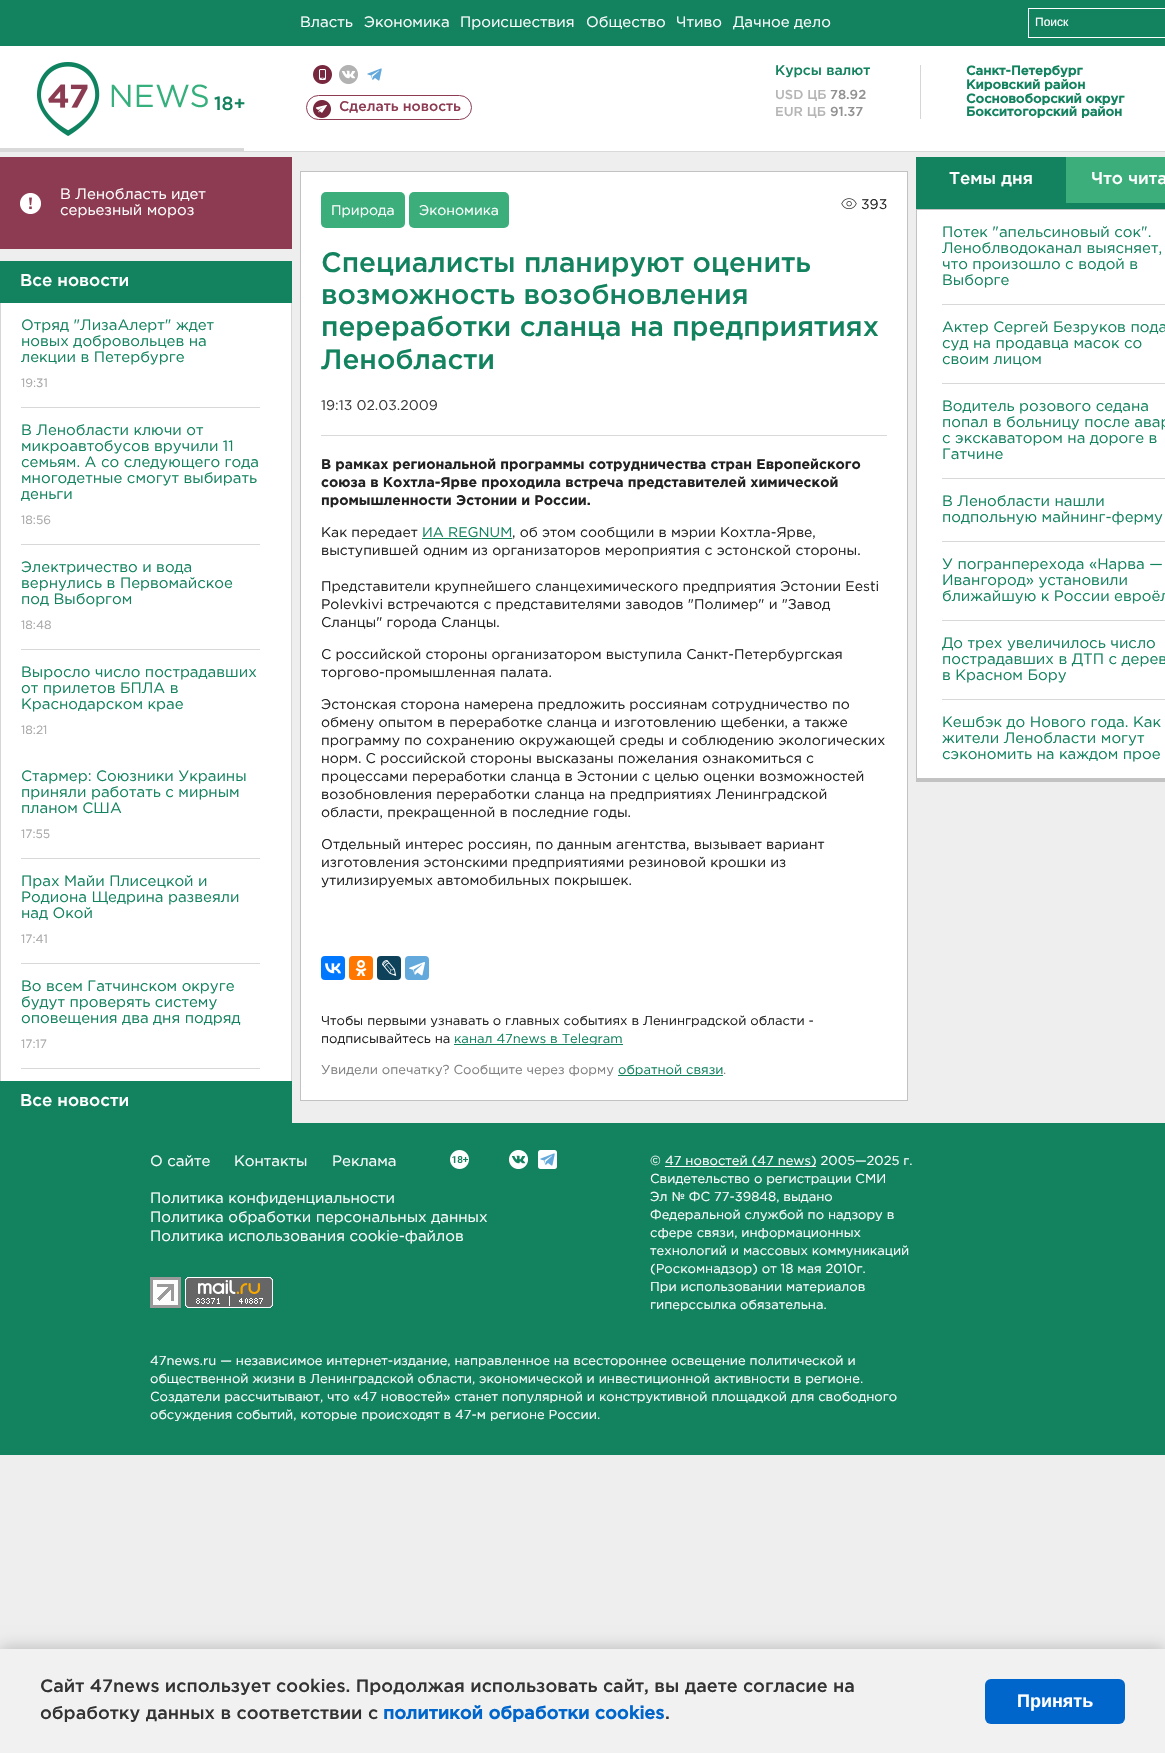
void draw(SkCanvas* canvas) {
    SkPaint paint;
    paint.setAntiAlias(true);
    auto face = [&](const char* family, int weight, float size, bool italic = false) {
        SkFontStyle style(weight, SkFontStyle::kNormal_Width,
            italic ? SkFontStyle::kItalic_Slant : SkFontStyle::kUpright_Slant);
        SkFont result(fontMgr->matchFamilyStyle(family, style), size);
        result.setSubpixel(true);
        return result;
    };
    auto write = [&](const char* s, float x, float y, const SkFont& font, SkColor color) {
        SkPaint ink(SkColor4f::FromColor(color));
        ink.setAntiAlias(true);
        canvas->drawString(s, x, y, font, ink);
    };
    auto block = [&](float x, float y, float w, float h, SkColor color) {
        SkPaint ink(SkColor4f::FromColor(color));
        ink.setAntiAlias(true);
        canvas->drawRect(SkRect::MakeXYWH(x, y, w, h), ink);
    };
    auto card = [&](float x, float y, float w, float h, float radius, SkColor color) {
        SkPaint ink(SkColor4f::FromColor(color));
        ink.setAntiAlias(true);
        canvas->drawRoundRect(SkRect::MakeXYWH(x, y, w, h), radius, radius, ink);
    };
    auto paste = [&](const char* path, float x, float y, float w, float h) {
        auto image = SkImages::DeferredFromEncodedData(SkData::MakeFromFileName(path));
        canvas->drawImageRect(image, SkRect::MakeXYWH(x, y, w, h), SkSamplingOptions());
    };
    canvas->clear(SkColorSetRGB(238, 238, 238));
    block(0, 0, 1165, 46, SkColorSetRGB(19, 130, 95));
    auto kFont1 = face("Gotham", 400, 15);
    write("Власть", 300, 27, kFont1, SK_ColorWHITE);
    write("Экономика", 364, 27, kFont1, SK_ColorWHITE);
    write("Происшествия", 460, 27, kFont1, SK_ColorWHITE);
    write("Общество", 586, 27, kFont1, SK_ColorWHITE);
    write("Чтиво", 676, 27, kFont1, SK_ColorWHITE);
    write("Дачное дело", 733, 27, kFont1, SK_ColorWHITE);
    paint.setStyle(SkPaint::kStroke_Style);
    paint.setStrokeWidth(1);
    paint.setColor(SK_ColorWHITE);
    canvas->drawRect(SkRect::MakeXYWH(1028.5f, 8.5f, 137, 29), paint);
    auto kFont2 = face("Liberation Sans", 400, 12);
    write("Поиск", 1035, 26, kFont2, SK_ColorWHITE);
    block(0, 46, 1165, 105, SK_ColorWHITE);
    block(0, 151, 1165, 1, SkColorSetRGB(218, 217, 217));
    block(0, 148, 244, 3, SkColorSetRGB(218, 217, 217));
    paste("pic1.png", 37, 62, 171, 74);
    auto kFont3 = face("Gotham", 500, 14);
    write("Курсы валют", 775, 75, kFont3, SkColorSetRGB(19, 130, 95));
    auto kFont4 = face("Gotham", 500, 13);
    write("USD ЦБ", 775, 99, kFont4, SkColorSetRGB(181, 181, 181));
    write("78.92", 830, 99, kFont4, SkColorSetRGB(145, 145, 145));
    write("EUR ЦБ", 775, 116, kFont4, SkColorSetRGB(181, 181, 181));
    write("91.37", 830, 116, kFont4, SkColorSetRGB(145, 145, 145));
    block(920, 65, 1, 54, SkColorSetRGB(214, 214, 214));
    auto kFont5 = face("Gotham", 700, 13);
    write("Санкт-Петербург", 966, 75, kFont5, SkColorSetRGB(19, 130, 95));
    write("Кировский район", 966, 89, kFont5, SkColorSetRGB(19, 130, 95));
    write("Сосновоборский округ", 966, 103, kFont5, SkColorSetRGB(19, 130, 95));
    write("Бокситогорский район", 966, 116, kFont5, SkColorSetRGB(19, 130, 95));
    auto kFont6 = face("Gotham", 500, 19);
    write("18+", 214, 110, kFont6, SkColorSetRGB(19, 130, 95));
    paste("pic2.png", 313, 65, 19, 19);
    paste("pic3.png", 339, 65, 19, 19);
    paste("pic4.png", 367, 68, 15, 13);
    paste("pic5.png", 313, 100, 18, 18);
    paint.setColor(SkColorSetRGB(140, 59, 82));
    canvas->drawRoundRect(SkRect::MakeXYWH(306.5f, 95.5f, 165, 24), 12, 12, paint);
    write("Сделать новость", 339, 111, kFont3, SkColorSetRGB(140, 59, 82));
    block(0, 157, 292, 92, SkColorSetRGB(140, 59, 82));
    paste("pic6.png", 20, 193, 21, 21);
    write("В Ленобласть идет", 60, 199, kFont1, SK_ColorWHITE);
    write("серьезный мороз", 60, 215, kFont1, SK_ColorWHITE);
    block(0, 261, 292, 42, SkColorSetRGB(19, 130, 95));
    auto kFont7 = face("Gotham", 500, 17);
    write("Все новости", 20, 286, kFont7, SK_ColorWHITE);
    block(1, 303, 290, 778, SK_ColorWHITE);
    block(291, 303, 1, 778, SkColorSetRGB(214, 214, 214));
    block(0, 303, 1, 778, SkColorSetRGB(214, 214, 214));
    block(21, 407, 239, 1, SkColorSetRGB(216, 216, 216));
    write("Отряд \"ЛизаАлерт\" ждет", 21, 330, kFont1, SkColorSetRGB(19, 130, 95));
    write("новых добровольцев на", 21, 346, kFont1, SkColorSetRGB(19, 130, 95));
    write("лекции в Петербурге", 21, 362, kFont1, SkColorSetRGB(19, 130, 95));
    auto kFont8 = face("Gotham", 400, 12);
    write("19:31", 21, 387, kFont8, SkColorSetRGB(167, 167, 167));
    block(21, 544, 239, 1, SkColorSetRGB(216, 216, 216));
    write("В Ленобласти ключи от", 21, 435, kFont1, SkColorSetRGB(19, 130, 95));
    write("микроавтобусов вручили 11", 21, 451, kFont1, SkColorSetRGB(19, 130, 95));
    write("семьям. А со следующего года", 21, 467, kFont1, SkColorSetRGB(19, 130, 95));
    write("многодетные смогут выбирать", 21, 483, kFont1, SkColorSetRGB(19, 130, 95));
    write("деньги", 21, 499, kFont1, SkColorSetRGB(19, 130, 95));
    write("18:56", 21, 524, kFont8, SkColorSetRGB(167, 167, 167));
    block(21, 649, 239, 1, SkColorSetRGB(216, 216, 216));
    write("Электричество и вода", 21, 572, kFont1, SkColorSetRGB(19, 130, 95));
    write("вернулись в Первомайское", 21, 588, kFont1, SkColorSetRGB(19, 130, 95));
    write("под Выборгом", 21, 604, kFont1, SkColorSetRGB(19, 130, 95));
    write("18:48", 21, 629, kFont8, SkColorSetRGB(167, 167, 167));
    write("Выросло число пострадавших", 21, 677, kFont1, SkColorSetRGB(19, 130, 95));
    write("от прилетов БПЛА в", 21, 693, kFont1, SkColorSetRGB(19, 130, 95));
    write("Краснодарском крае", 21, 709, kFont1, SkColorSetRGB(19, 130, 95));
    write("18:21", 21, 734, kFont8, SkColorSetRGB(167, 167, 167));
    block(21, 858, 239, 1, SkColorSetRGB(216, 216, 216));
    write("Стармер: Союзники Украины", 21, 781, kFont1, SkColorSetRGB(19, 130, 95));
    write("приняли работать с мирным", 21, 797, kFont1, SkColorSetRGB(19, 130, 95));
    write("планом США", 21, 813, kFont1, SkColorSetRGB(19, 130, 95));
    write("17:55", 21, 838, kFont8, SkColorSetRGB(167, 167, 167));
    block(21, 963, 239, 1, SkColorSetRGB(216, 216, 216));
    write("Прах Майи Плисецкой и", 21, 886, kFont1, SkColorSetRGB(19, 130, 95));
    write("Родиона Щедрина развеяли", 21, 902, kFont1, SkColorSetRGB(19, 130, 95));
    write("над Окой", 21, 918, kFont1, SkColorSetRGB(19, 130, 95));
    write("17:41", 21, 943, kFont8, SkColorSetRGB(167, 167, 167));
    block(21, 1068, 239, 1, SkColorSetRGB(216, 216, 216));
    write("Во всем Гатчинском округе", 21, 991, kFont1, SkColorSetRGB(19, 130, 95));
    write("будут проверять систему", 21, 1007, kFont1, SkColorSetRGB(19, 130, 95));
    write("оповещения два дня подряд", 21, 1023, kFont1, SkColorSetRGB(19, 130, 95));
    write("17:17", 21, 1048, kFont8, SkColorSetRGB(167, 167, 167));
    block(0, 1081, 292, 42, SkColorSetRGB(19, 130, 95));
    write("Все новости", 20, 1106, kFont7, SK_ColorWHITE);
    paint.setStyle(SkPaint::kFill_Style);
    paint.setColor(SK_ColorWHITE);
    canvas->drawRect(SkRect::MakeXYWH(300.5f, 171.5f, 607, 929), paint);
    paint.setStyle(SkPaint::kStroke_Style);
    paint.setColor(SkColorSetRGB(194, 194, 194));
    canvas->drawRect(SkRect::MakeXYWH(300.5f, 171.5f, 607, 929), paint);
    block(321, 435, 566, 1, SkColorSetRGB(218, 217, 217));
    card(321, 192, 84, 36, 5, SkColorSetRGB(59, 174, 124));
    auto kFont9 = face("Gotham", 400, 14);
    write("Природа", 331, 215, kFont9, SK_ColorWHITE);
    card(409, 192, 100, 36, 5, SkColorSetRGB(59, 174, 124));
    write("Экономика", 419, 215, kFont9, SK_ColorWHITE);
    paste("pic7.png", 841, 198, 16, 11);
    write("393", 861, 209, kFont9, SkColorSetRGB(34, 34, 34));
    auto kFont10 = face("Gotham", 500, 28);
    write("Специалисты планируют оценить", 321, 272, kFont10, SkColorSetRGB(19, 130, 95));
    write("возможность возобновления", 321, 304, kFont10, SkColorSetRGB(19, 130, 95));
    write("переработки сланца на предприятиях", 321, 336, kFont10, SkColorSetRGB(19, 130, 95));
    write("Ленобласти", 321, 369, kFont10, SkColorSetRGB(19, 130, 95));
    write("19:13 02.03.2009", 321, 410, kFont9, SkColorSetRGB(60, 60, 60));
    auto kFont11 = face("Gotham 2", 700, 14);
    write("В рамках региональной программы сотрудничества стран Европейского", 321, 469, kFont11, SkColorSetRGB(34, 34, 34));
    write("союза в Кохтла-Ярве проходила встреча представителей химической", 321, 487, kFont11, SkColorSetRGB(34, 34, 34));
    write("промышленности Эстонии и России.", 321, 505, kFont11, SkColorSetRGB(34, 34, 34));
    write("Как передает", 321, 537, kFont9, SkColorSetRGB(34, 34, 34));
    write("ИА REGNUM", 422, 537, kFont9, SkColorSetRGB(19, 130, 95));
    block(422, 538, 90, 1, SkColorSetRGB(19, 130, 95));
    write(", об этом сообщили в мэрии Кохтла-Ярве,", 512, 537, kFont9, SkColorSetRGB(34, 34, 34));
    write("выступившей одним из организаторов мероприятия с эстонской стороны.", 321, 555, kFont9, SkColorSetRGB(34, 34, 34));
    write("Представители крупнейшего сланцехимического предприятия Эстонии Eesti", 321, 591, kFont9, SkColorSetRGB(34, 34, 34));
    write("Polevkivi встречаются с представителями заводов \"Полимер\" и \"Завод", 321, 609, kFont9, SkColorSetRGB(34, 34, 34));
    write("Сланцы\" города Сланцы.", 321, 627, kFont9, SkColorSetRGB(34, 34, 34));
    write("С российской стороны организатором выступила Санкт-Петербургская", 321, 659, kFont9, SkColorSetRGB(34, 34, 34));
    write("торгово-промышленная палата.", 321, 677, kFont9, SkColorSetRGB(34, 34, 34));
    write("Эстонская сторона намерена предложить россиянам сотрудничество по", 321, 709, kFont9, SkColorSetRGB(34, 34, 34));
    write("обмену опытом в переработке сланца и изготовлению щебенки, а также", 321, 727, kFont9, SkColorSetRGB(34, 34, 34));
    write("программу по сохранению окружающей среды и соблюдению экологических", 321, 745, kFont9, SkColorSetRGB(34, 34, 34));
    write("норм. С российской стороны высказаны пожелания ознакомиться с", 321, 763, kFont9, SkColorSetRGB(34, 34, 34));
    write("процессами переработки сланца в Эстонии с целью оценки возможностей", 321, 781, kFont9, SkColorSetRGB(34, 34, 34));
    write("возобновления переработки сланца на предприятиях Ленинградской", 321, 799, kFont9, SkColorSetRGB(34, 34, 34));
    write("области, прекращенной в последние годы.", 321, 817, kFont9, SkColorSetRGB(34, 34, 34));
    write("Отдельный интерес россиян, по данным агентства, вызывает вариант", 321, 849, kFont9, SkColorSetRGB(34, 34, 34));
    write("изготовления эстонскими предприятиями резиновой крошки из", 321, 867, kFont9, SkColorSetRGB(34, 34, 34));
    write("утилизируемых автомобильных покрышек.", 321, 885, kFont9, SkColorSetRGB(34, 34, 34));
    card(321, 956, 24, 24, 4, SkColorSetRGB(0, 119, 255));
    paste("pic8.png", 325, 963, 16, 11);
    card(349, 956, 24, 24, 4, SkColorSetRGB(255, 119, 0));
    paste("pic9.png", 355, 960, 12, 16);
    card(377, 956, 24, 24, 4, SkColorSetRGB(13, 66, 90));
    paste("pic10.png", 382, 960, 15, 16);
    card(405, 956, 24, 24, 4, SkColorSetRGB(100, 169, 220));
    paste("pic11.png", 409, 962, 16, 14);
    auto kFont12 = face("Gotham", 400, 13);
    write("Чтобы первыми узнавать о главных событиях в Ленинградской области -", 321, 1025, kFont12, SkColorSetRGB(34, 34, 34));
    write("подписывайтесь на", 321, 1043, kFont12, SkColorSetRGB(34, 34, 34));
    block(454, 1044, 169, 1, SkColorSetRGB(19, 130, 95));
    write("канал 47news в Telegram", 454, 1043, kFont12, SkColorSetRGB(19, 130, 95));
    write("Увидели опечатку? Сообщите через форму", 321, 1074, kFont12, SkColorSetRGB(128, 128, 128));
    block(618, 1075, 105, 1, SkColorSetRGB(19, 130, 95));
    write("обратной связи", 618, 1074, kFont12, SkColorSetRGB(19, 130, 95));
    write(".", 723, 1074, kFont12, SkColorSetRGB(128, 128, 128));
    block(916, 157, 249, 52, SkColorSetRGB(19, 130, 95));
    write("Темы дня", 949, 184, kFont7, SK_ColorWHITE);
    block(1066, 157, 99, 46, SkColorSetRGB(59, 174, 124));
    write("Что чита", 1091, 184, kFont7, SK_ColorWHITE);
    block(917, 210, 248, 568, SK_ColorWHITE);
    block(916, 209, 249, 1, SkColorSetRGB(194, 194, 194));
    block(916, 778, 249, 4, SkColorSetRGB(194, 194, 194));
    block(916, 209, 1, 573, SkColorSetRGB(194, 194, 194));
    block(942, 304, 223, 1, SkColorSetRGB(216, 216, 216));
    write("Потек \"апельсиновый сок\".", 942, 237, kFont1, SkColorSetRGB(19, 130, 95));
    write("Леноблводоканал выясняет,", 942, 253, kFont1, SkColorSetRGB(19, 130, 95));
    write("что произошло с водой в", 942, 269, kFont1, SkColorSetRGB(19, 130, 95));
    write("Выборге", 942, 285, kFont1, SkColorSetRGB(19, 130, 95));
    block(942, 383, 223, 1, SkColorSetRGB(216, 216, 216));
    write("Актер Сергей Безруков пода", 942, 332, kFont1, SkColorSetRGB(19, 130, 95));
    write("суд на продавца масок со", 942, 348, kFont1, SkColorSetRGB(19, 130, 95));
    write("своим лицом", 942, 364, kFont1, SkColorSetRGB(19, 130, 95));
    block(942, 478, 223, 1, SkColorSetRGB(216, 216, 216));
    write("Водитель розового седана", 942, 411, kFont1, SkColorSetRGB(19, 130, 95));
    write("попал в больницу после авар", 942, 427, kFont1, SkColorSetRGB(19, 130, 95));
    write("с экскаватором на дороге в", 942, 443, kFont1, SkColorSetRGB(19, 130, 95));
    write("Гатчине", 942, 459, kFont1, SkColorSetRGB(19, 130, 95));
    block(942, 541, 223, 1, SkColorSetRGB(216, 216, 216));
    write("В Ленобласти нашли", 942, 506, kFont1, SkColorSetRGB(19, 130, 95));
    write("подпольную майнинг-ферму", 942, 522, kFont1, SkColorSetRGB(19, 130, 95));
    block(942, 620, 223, 1, SkColorSetRGB(216, 216, 216));
    write("У погранперехода «Нарва —", 942, 569, kFont1, SkColorSetRGB(19, 130, 95));
    write("Ивангород» установили", 942, 585, kFont1, SkColorSetRGB(19, 130, 95));
    write("ближайшую к России евроёл", 942, 601, kFont1, SkColorSetRGB(19, 130, 95));
    block(942, 699, 223, 1, SkColorSetRGB(216, 216, 216));
    write("До трех увеличилось число", 942, 648, kFont1, SkColorSetRGB(19, 130, 95));
    write("пострадавших в ДТП с дерев", 942, 664, kFont1, SkColorSetRGB(19, 130, 95));
    write("в Красном Бору", 942, 680, kFont1, SkColorSetRGB(19, 130, 95));
    write("Кешбэк до Нового года. Как", 942, 727, kFont1, SkColorSetRGB(19, 130, 95));
    write("жители Ленобласти могут", 942, 743, kFont1, SkColorSetRGB(19, 130, 95));
    write("сэкономить на каждом прое", 942, 759, kFont1, SkColorSetRGB(19, 130, 95));
    block(0, 1123, 1165, 332, SkColorSetRGB(19, 130, 95));
    write("О сайте", 150, 1166, kFont1, SK_ColorWHITE);
    write("Контакты", 234, 1166, kFont1, SK_ColorWHITE);
    write("Реклама", 332, 1166, kFont1, SK_ColorWHITE);
    write("Политика конфиденциальности", 150, 1203, kFont1, SK_ColorWHITE);
    write("Политика обработки персональных данных", 150, 1222, kFont1, SK_ColorWHITE);
    write("Политика использования cookie-файлов", 150, 1241, kFont1, SK_ColorWHITE);
    paste("pic12.png", 450, 1150, 19, 19);
    paste("pic13.png", 509, 1150, 19, 19);
    paste("pic14.png", 538, 1150, 19, 19);
    paste("pic15.png", 150, 1277, 31, 31);
    paste("pic16.png", 185, 1277, 88, 31);
    write("©", 650, 1165, kFont12, SK_ColorWHITE);
    block(665, 1166, 151, 1, SK_ColorWHITE);
    write("47 новостей (47 news) 2005—2025 г.", 665, 1165, kFont12, SK_ColorWHITE);
    write("Свидетельство о регистрации СМИ", 650, 1183, kFont12, SK_ColorWHITE);
    write("Эл № ФС 77-39848, выдано", 650, 1201, kFont12, SK_ColorWHITE);
    write("Федеральной службой по надзору в", 650, 1219, kFont12, SK_ColorWHITE);
    write("сфере связи, информационных", 650, 1237, kFont12, SK_ColorWHITE);
    write("технологий и массовых коммуникаций", 650, 1255, kFont12, SK_ColorWHITE);
    write("(Роскомнадзор) от 18 мая 2010г.", 650, 1273, kFont12, SK_ColorWHITE);
    write("При использовании материалов", 650, 1291, kFont12, SK_ColorWHITE);
    write("гиперссылка обязательна.", 650, 1309, kFont12, SK_ColorWHITE);
    write("47news.ru — независимое интернет-издание, направленное на всестороннее освещение политической и", 150, 1365, kFont12, SK_ColorWHITE);
    write("общественной жизни в Ленинградской области, экономической и инвестиционной активности в регионе.", 150, 1383, kFont12, SK_ColorWHITE);
    write("Создатели рассчитывают, что «47 новостей» станет популярной и конструктивной площадкой для свободного", 150, 1401, kFont12, SK_ColorWHITE);
    write("обсуждения событий, которые происходят в 47-м регионе России.", 150, 1419, kFont12, SK_ColorWHITE);
    paint.setStyle(SkPaint::kFill_Style);
    paint.setColor(SkColorSetARGB(51, 0, 0, 0));
    paint.setMaskFilter(SkMaskFilter::MakeBlur(kNormal_SkBlurStyle, 7.5f));
    canvas->drawRect(SkRect::MakeXYWH(0, 1647, 1165, 104), paint);
    paint.setMaskFilter(nullptr);
    block(0, 1649, 1165, 104, SkColorSetRGB(241, 241, 241));
    auto kFont13 = face("Gotham", 500, 18);
    write("Сайт 47news использует cookies. Продолжая использовать сайт, вы даете согласие на", 40, 1692, kFont13, SkColorSetRGB(51, 51, 51));
    write("обработку данных в соответствии с", 40, 1719, kFont13, SkColorSetRGB(51, 51, 51));
    auto kFont14 = face("Gotham", 700, 18);
    write("политикой обработки cookies", 383, 1719, kFont14, SkColorSetRGB(0, 102, 204));
    write(".", 665, 1719, kFont13, SkColorSetRGB(51, 51, 51));
    card(985, 1679, 140, 45, 6, SkColorSetRGB(0, 102, 204));
    auto kFont15 = face("Liberation Sans", 700, 18);
    write("Принять", 1017, 1707, kFont15, SK_ColorWHITE);
}
